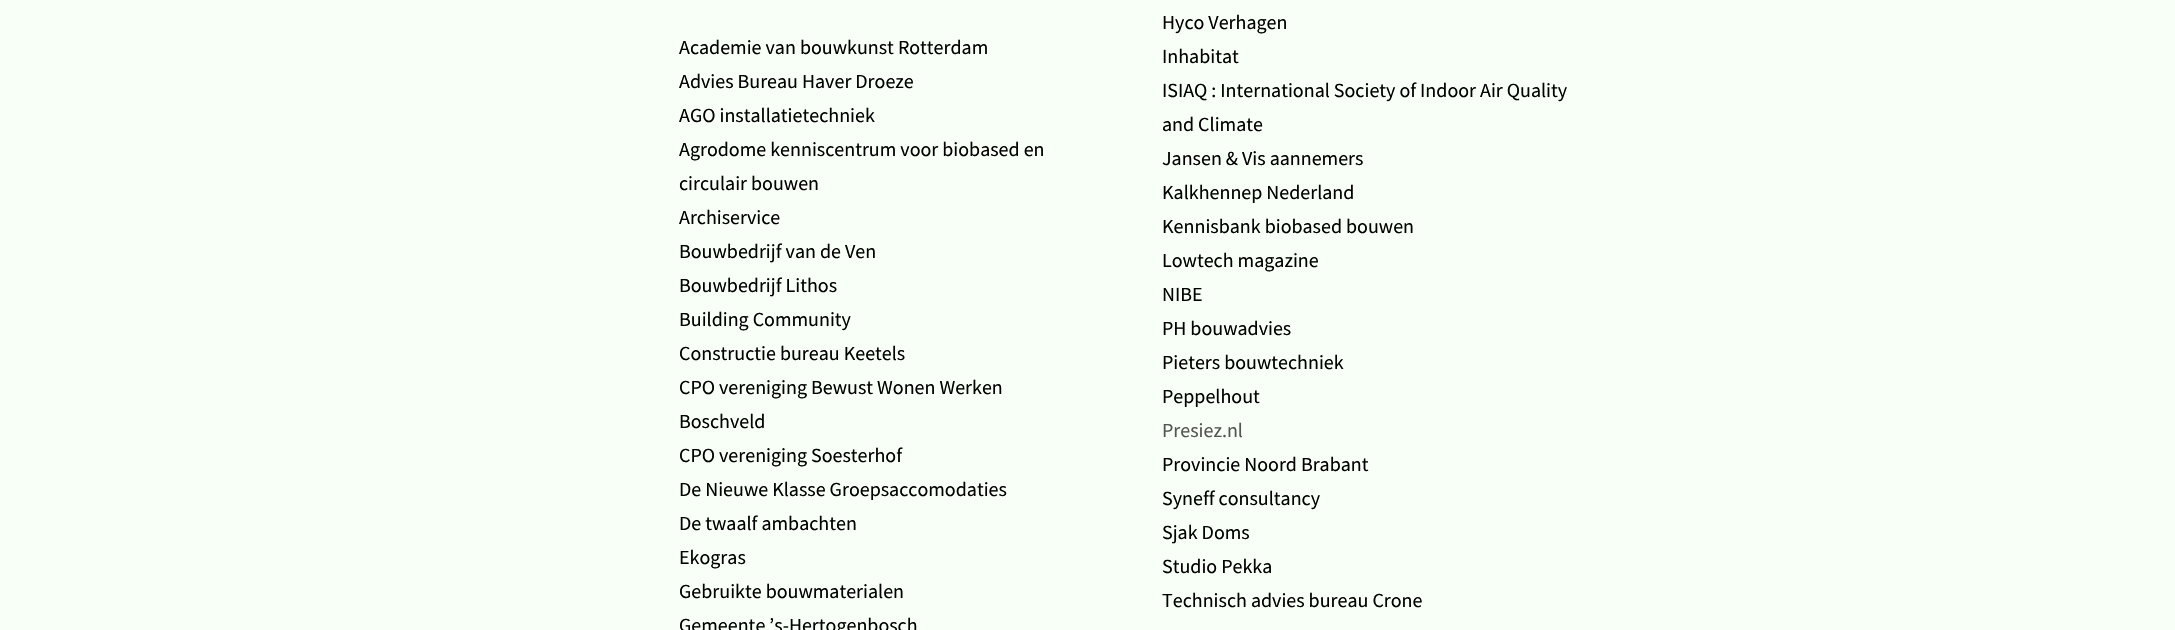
void draw(SkCanvas* canvas) {
    SkPaint paint;
    paint.setAntiAlias(true);
    auto face = [&](const char* family, int weight, float size, bool italic = false) {
        SkFontStyle style(weight, SkFontStyle::kNormal_Width,
            italic ? SkFontStyle::kItalic_Slant : SkFontStyle::kUpright_Slant);
        SkFont result(fontMgr->matchFamilyStyle(family, style), size);
        result.setSubpixel(true);
        return result;
    };
    auto write = [&](const char* s, float x, float y, const SkFont& font, SkColor color) {
        SkPaint ink(SkColor4f::FromColor(color));
        ink.setAntiAlias(true);
        canvas->drawString(s, x, y, font, ink);
    };
    canvas->clear(SkColorSetRGB(248, 255, 246));
    auto kFont1 = face("Source Sans Pro", 400, 20);
    write("Academie van bouwkunst Rotterdam", 679, 54, kFont1, SK_ColorBLACK);
    write("Advies Bureau Haver Droeze", 679, 88, kFont1, SK_ColorBLACK);
    write("AGO installatietechniek", 679, 122, kFont1, SK_ColorBLACK);
    write("Agrodome kenniscentrum voor biobased en", 679, 156, kFont1, SK_ColorBLACK);
    write("circulair bouwen", 679, 190, kFont1, SK_ColorBLACK);
    write("Archiservice", 679, 224, kFont1, SK_ColorBLACK);
    write("Bouwbedrijf van de Ven", 679, 258, kFont1, SK_ColorBLACK);
    write("Bouwbedrijf Lithos", 679, 292, kFont1, SK_ColorBLACK);
    write("Building Community", 679, 326, kFont1, SK_ColorBLACK);
    write("Constructie bureau Keetels", 679, 360, kFont1, SK_ColorBLACK);
    write("CPO vereniging Bewust Wonen Werken", 679, 394, kFont1, SK_ColorBLACK);
    write("Boschveld", 679, 428, kFont1, SK_ColorBLACK);
    write("CPO vereniging Soesterhof", 679, 462, kFont1, SK_ColorBLACK);
    write("De Nieuwe Klasse Groepsaccomodaties", 679, 496, kFont1, SK_ColorBLACK);
    write("De twaalf ambachten", 679, 530, kFont1, SK_ColorBLACK);
    write("Ekogras", 679, 564, kFont1, SK_ColorBLACK);
    write("Gebruikte bouwmaterialen", 679, 598, kFont1, SK_ColorBLACK);
    write("Gemeente ’s-Hertogenbosch", 679, 632, kFont1, SK_ColorBLACK);
    write("Hyco Verhagen", 1162, 29, kFont1, SK_ColorBLACK);
    write("Inhabitat", 1162, 63, kFont1, SK_ColorBLACK);
    write("ISIAQ : International Society of Indoor Air Quality", 1162, 97, kFont1, SK_ColorBLACK);
    write("and Climate", 1162, 131, kFont1, SK_ColorBLACK);
    write("Jansen & Vis aannemers", 1162, 165, kFont1, SK_ColorBLACK);
    write("Kalkhennep Nederland", 1162, 199, kFont1, SK_ColorBLACK);
    write("Kennisbank biobased bouwen", 1162, 233, kFont1, SK_ColorBLACK);
    write("Lowtech magazine", 1162, 267, kFont1, SK_ColorBLACK);
    write("NIBE", 1162, 301, kFont1, SK_ColorBLACK);
    write("PH bouwadvies", 1162, 335, kFont1, SK_ColorBLACK);
    write("Pieters bouwtechniek", 1162, 369, kFont1, SK_ColorBLACK);
    write("Peppelhout", 1162, 403, kFont1, SK_ColorBLACK);
    write("Presiez.nl", 1162, 437, kFont1, SkColorSetRGB(84, 84, 84));
    write("Provincie Noord Brabant", 1162, 471, kFont1, SK_ColorBLACK);
    write("Syneff consultancy", 1162, 505, kFont1, SK_ColorBLACK);
    write("Sjak Doms", 1162, 539, kFont1, SK_ColorBLACK);
    write("Studio Pekka", 1162, 573, kFont1, SK_ColorBLACK);
    write("Technisch advies bureau Crone", 1162, 607, kFont1, SK_ColorBLACK);
}
